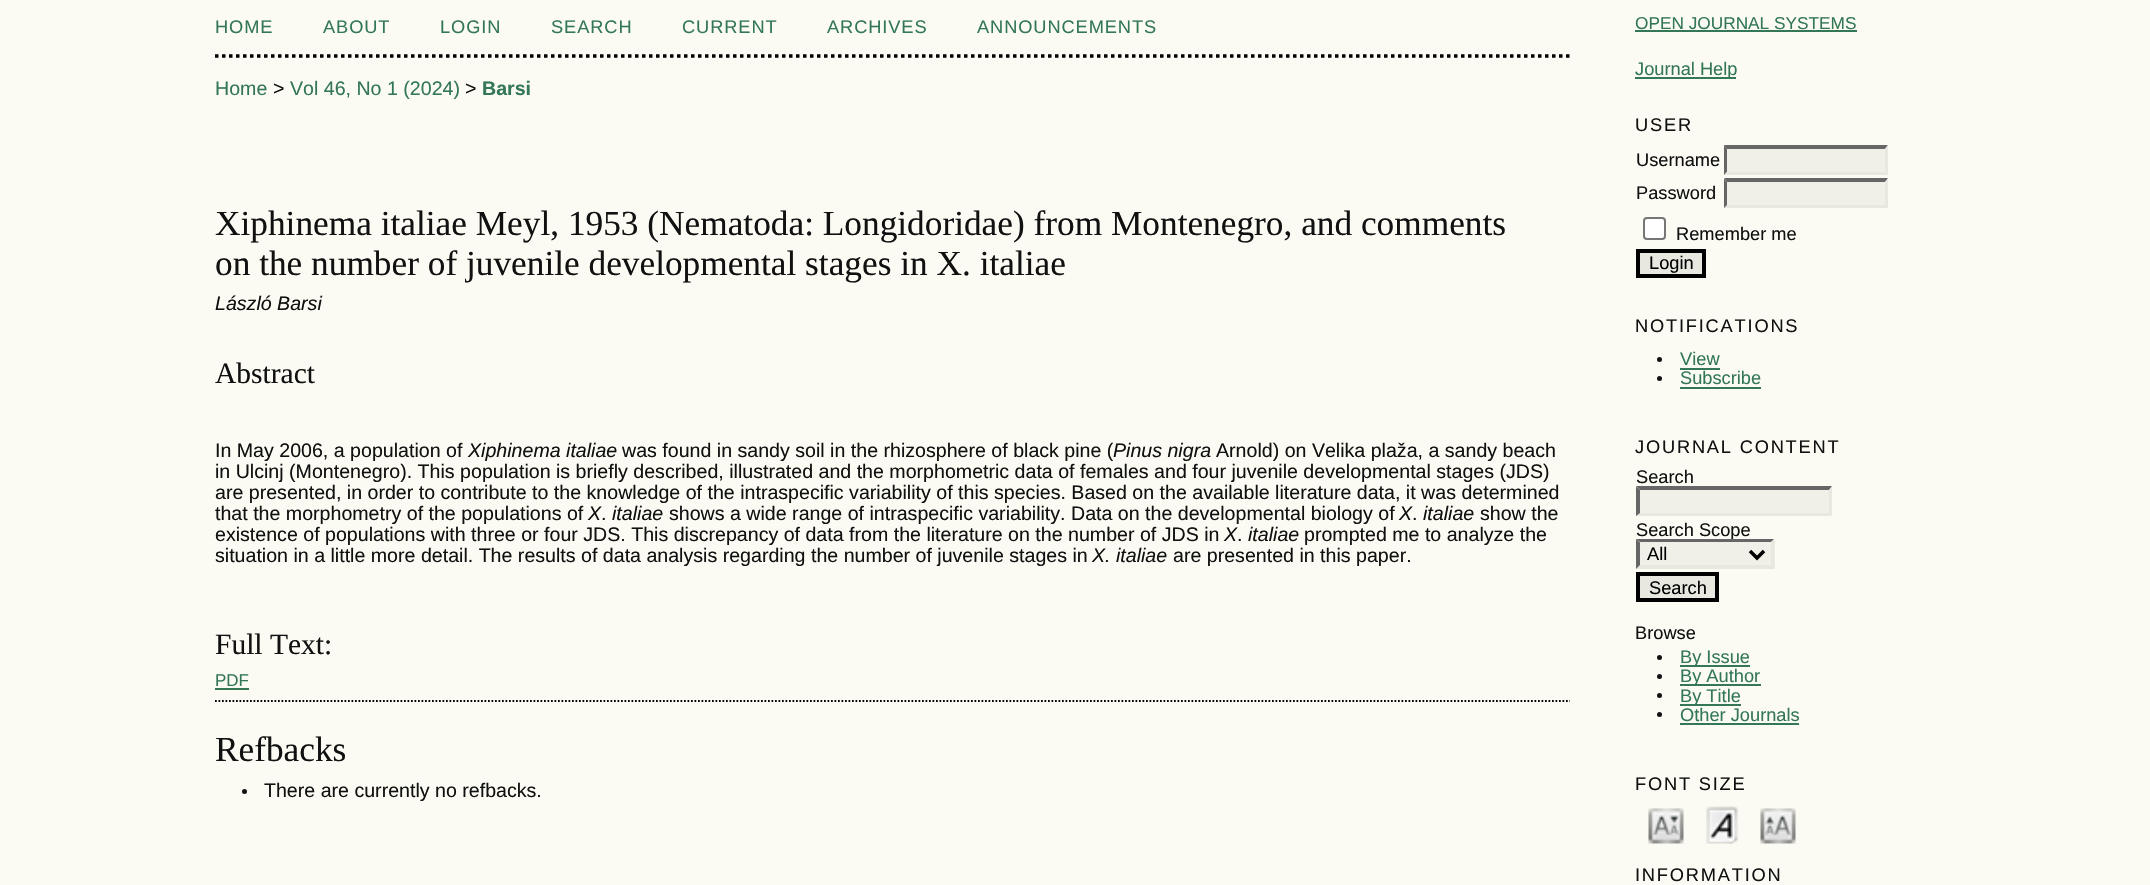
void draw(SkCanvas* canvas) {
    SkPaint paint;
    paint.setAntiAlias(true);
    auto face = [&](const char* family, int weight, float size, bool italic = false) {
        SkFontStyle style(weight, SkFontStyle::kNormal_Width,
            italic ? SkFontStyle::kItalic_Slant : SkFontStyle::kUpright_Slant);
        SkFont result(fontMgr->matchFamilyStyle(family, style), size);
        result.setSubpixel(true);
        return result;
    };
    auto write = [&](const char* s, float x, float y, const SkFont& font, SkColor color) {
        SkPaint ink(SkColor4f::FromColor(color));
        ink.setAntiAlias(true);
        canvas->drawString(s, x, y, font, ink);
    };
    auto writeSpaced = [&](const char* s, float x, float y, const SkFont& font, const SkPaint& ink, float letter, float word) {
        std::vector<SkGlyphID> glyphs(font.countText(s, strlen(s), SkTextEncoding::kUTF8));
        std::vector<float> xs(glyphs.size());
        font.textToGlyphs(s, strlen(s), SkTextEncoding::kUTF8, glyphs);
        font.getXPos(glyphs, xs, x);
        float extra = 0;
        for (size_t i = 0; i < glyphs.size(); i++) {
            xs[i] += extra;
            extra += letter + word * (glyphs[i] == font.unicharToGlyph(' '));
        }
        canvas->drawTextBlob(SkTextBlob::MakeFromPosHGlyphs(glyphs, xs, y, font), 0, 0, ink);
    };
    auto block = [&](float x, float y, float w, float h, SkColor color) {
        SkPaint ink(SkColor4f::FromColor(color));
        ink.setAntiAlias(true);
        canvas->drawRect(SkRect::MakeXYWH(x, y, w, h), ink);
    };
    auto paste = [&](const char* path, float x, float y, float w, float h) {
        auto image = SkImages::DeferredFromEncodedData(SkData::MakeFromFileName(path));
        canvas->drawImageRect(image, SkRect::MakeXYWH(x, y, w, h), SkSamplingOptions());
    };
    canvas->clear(SkColorSetRGB(251, 251, 243));
    paint.setStyle(SkPaint::kStroke_Style);
    paint.setStrokeWidth(3.5f);
    paint.setColor(SK_ColorBLACK);
    paint.setPathEffect(SkDashPathEffect::Make({{3.5f, 3.5f}}, 0));
    canvas->drawPath(SkPathBuilder().moveTo(215, 56).lineTo(1570, 56).detach(), paint);
    paint.setPathEffect(nullptr);
    auto kFont1 = face("Liberation Sans", 400, 18.25f);
    paint.setStyle(SkPaint::kFill_Style);
    paint.setColor(SkColorSetRGB(51, 119, 85));
    writeSpaced("HOME", 215, 33, kFont1, paint, 0.9f, 0);
    writeSpaced("ABOUT", 323, 33, kFont1, paint, 0.9f, 0);
    writeSpaced("LOGIN", 440, 33, kFont1, paint, 0.9f, 0);
    writeSpaced("SEARCH", 551, 33, kFont1, paint, 0.9f, 0);
    writeSpaced("CURRENT", 682, 33, kFont1, paint, 0.9f, 0);
    writeSpaced("ARCHIVES", 827, 33, kFont1, paint, 0.9f, 0);
    writeSpaced("ANNOUNCEMENTS", 977, 33, kFont1, paint, 0.9f, 0);
    auto kFont2 = face("Liberation Sans", 400, 19.6f);
    write("Home", 215, 95, kFont2, SkColorSetRGB(51, 119, 85));
    write(">", 273, 95, kFont2, SkColorSetRGB(17, 17, 17));
    write("Vol 46, No 1 (2024)", 290, 95, kFont2, SkColorSetRGB(51, 119, 85));
    write(">", 465, 95, kFont2, SkColorSetRGB(17, 17, 17));
    auto kFont3 = face("Liberation Sans", 700, 19.6f);
    write("Barsi", 482, 95, kFont3, SkColorSetRGB(51, 119, 85));
    auto kFont4 = face("Liberation Serif", 400, 35.3f);
    write("Xiphinema italiae Meyl, 1953 (Nematoda: Longidoridae) from Montenegro, and comments", 215, 235, kFont4, SkColorSetRGB(17, 17, 17));
    write("on the number of juvenile developmental stages in X. italiae", 215, 275, kFont4, SkColorSetRGB(17, 17, 17));
    auto kFont5 = face("Liberation Sans", 400, 19.6f, true);
    write("László Barsi", 215, 310, kFont5, SkColorSetRGB(17, 17, 17));
    auto kFont6 = face("Liberation Serif", 400, 29.5f);
    write("Abstract", 215, 383, kFont6, SkColorSetRGB(17, 17, 17));
    write("In May 2006, a population of", 215, 457, kFont2, SkColorSetRGB(17, 17, 17));
    write("Xiphinema italiae", 468, 457, kFont5, SkColorSetRGB(17, 17, 17));
    write("was found in sandy soil in the rhizosphere of black pine (", 622, 457, kFont2, SkColorSetRGB(17, 17, 17));
    write("Pinus nigra", 1113, 457, kFont5, SkColorSetRGB(17, 17, 17));
    write("Arnold) on Velika plaža, a sandy beach", 1216, 457, kFont2, SkColorSetRGB(17, 17, 17));
    write("in Ulcinj (Montenegro). This population is briefly described, illustrated and the morphometric data of females and four juvenile developmental stages (JDS)", 215, 478, kFont2, SkColorSetRGB(17, 17, 17));
    write("are presented, in order to contribute to the knowledge of the intraspecific variability of this species. Based on the available literature data, it was determined", 215, 499, kFont2, SkColorSetRGB(17, 17, 17));
    write("that the morphometry of the populations of", 215, 520, kFont2, SkColorSetRGB(17, 17, 17));
    write("X", 588, 520, kFont5, SkColorSetRGB(17, 17, 17));
    write(".", 601, 520, kFont2, SkColorSetRGB(17, 17, 17));
    write("italiae", 612, 520, kFont5, SkColorSetRGB(17, 17, 17));
    write("shows a wide range of intraspecific variability. Data on the developmental biology of", 669, 520, kFont2, SkColorSetRGB(17, 17, 17));
    write("X", 1399, 520, kFont5, SkColorSetRGB(17, 17, 17));
    write(".", 1412, 520, kFont2, SkColorSetRGB(17, 17, 17));
    write("italiae", 1423, 520, kFont5, SkColorSetRGB(17, 17, 17));
    write("show the", 1480, 520, kFont2, SkColorSetRGB(17, 17, 17));
    write("existence of populations with three or four JDS. This discrepancy of data from the literature on the number of JDS in", 215, 541, kFont2, SkColorSetRGB(17, 17, 17));
    write("X", 1224, 541, kFont5, SkColorSetRGB(17, 17, 17));
    write(".", 1237, 541, kFont2, SkColorSetRGB(17, 17, 17));
    write("italiae", 1248, 541, kFont5, SkColorSetRGB(17, 17, 17));
    write("prompted me to analyze the", 1304, 541, kFont2, SkColorSetRGB(17, 17, 17));
    write("situation in a little more detail. The results of data analysis regarding the number of juvenile stages in", 215, 562, kFont2, SkColorSetRGB(17, 17, 17));
    write("X. italiae", 1092, 562, kFont5, SkColorSetRGB(17, 17, 17));
    write("are presented in this paper.", 1173, 562, kFont2, SkColorSetRGB(17, 17, 17));
    write("Full Text:", 215, 654, kFont6, SkColorSetRGB(17, 17, 17));
    auto kFont7 = face("Liberation Sans", 400, 17);
    write("PDF", 215, 686, kFont7, SkColorSetRGB(51, 119, 85));
    block(215, 688, 34, 2, SkColorSetRGB(51, 119, 85));
    paint.setStyle(SkPaint::kStroke_Style);
    paint.setStrokeWidth(1.8f);
    paint.setColor(SK_ColorBLACK);
    paint.setPathEffect(SkDashPathEffect::Make({{1.75f, 1.75f}}, 0));
    canvas->drawPath(SkPathBuilder().moveTo(215, 701).lineTo(1570, 701).detach(), paint);
    paint.setPathEffect(nullptr);
    write("Refbacks", 215, 761, kFont4, SkColorSetRGB(17, 17, 17));
    paint.setStyle(SkPaint::kFill_Style);
    paint.setColor(SkColorSetRGB(17, 17, 17));
    canvas->drawCircle(244.5f, 791.5f, 2.5f, paint);
    write("There are currently no refbacks.", 264, 797, kFont2, SkColorSetRGB(17, 17, 17));
    auto kFont8 = face("Liberation Sans", 400, 17.25f);
    write("OPEN JOURNAL SYSTEMS", 1635, 29, kFont8, SkColorSetRGB(51, 119, 85));
    block(1635, 30, 222, 2, SkColorSetRGB(51, 119, 85));
    block(1635, 77, 101, 2, SkColorSetRGB(51, 119, 85));
    write("Journal Help", 1635, 75, kFont1, SkColorSetRGB(51, 119, 85));
    writeSpaced("USER", 1635, 131, kFont1, paint, 1.8f, 0);
    write("Username", 1636, 166, kFont1, SkColorSetRGB(17, 17, 17));
    block(1724, 145, 164, 30, SkColorSetRGB(240, 240, 232));
    paint.setColor(SkColorSetRGB(102, 102, 102));
    canvas->drawPath(SkPathBuilder().moveTo(1724, 145).lineTo(1888, 145).lineTo(1885, 149).lineTo(1727, 149).close().detach(), paint);
    paint.setColor(SkColorSetRGB(232, 232, 225));
    canvas->drawPath(SkPathBuilder().moveTo(1888, 145).lineTo(1888, 175).lineTo(1885, 171.5f).lineTo(1885, 149).close().detach(), paint);
    canvas->drawPath(SkPathBuilder().moveTo(1888, 175).lineTo(1724, 175).lineTo(1727, 172).lineTo(1885, 172).close().detach(), paint);
    paint.setColor(SkColorSetRGB(102, 102, 102));
    canvas->drawPath(SkPathBuilder().moveTo(1724, 175).lineTo(1724, 145).lineTo(1727, 149).lineTo(1727, 171.5f).close().detach(), paint);
    write("Password", 1636, 199, kFont1, SkColorSetRGB(17, 17, 17));
    block(1724, 179, 164, 29, SkColorSetRGB(240, 240, 232));
    canvas->drawPath(SkPathBuilder().moveTo(1724, 178).lineTo(1888, 178).lineTo(1885, 182).lineTo(1727, 182).close().detach(), paint);
    paint.setColor(SkColorSetRGB(232, 232, 225));
    canvas->drawPath(SkPathBuilder().moveTo(1888, 178.5f).lineTo(1888, 208).lineTo(1885, 205).lineTo(1885, 182).close().detach(), paint);
    canvas->drawPath(SkPathBuilder().moveTo(1888, 208).lineTo(1724, 208).lineTo(1727, 205).lineTo(1885, 205).close().detach(), paint);
    paint.setColor(SkColorSetRGB(102, 102, 102));
    canvas->drawPath(SkPathBuilder().moveTo(1724, 208).lineTo(1724, 178.5f).lineTo(1727, 182).lineTo(1727, 205).close().detach(), paint);
    paint.setColor(SK_ColorWHITE);
    canvas->drawRoundRect(SkRect::MakeXYWH(1644, 218, 21, 21), 3, 3, paint);
    paint.setStyle(SkPaint::kStroke_Style);
    paint.setStrokeWidth(2);
    paint.setColor(SkColorSetRGB(118, 118, 118));
    canvas->drawRoundRect(SkRect::MakeXYWH(1644, 218, 21, 21), 3, 3, paint);
    write("Remember me", 1676, 240, kFont1, SkColorSetRGB(17, 17, 17));
    paint.setStyle(SkPaint::kFill_Style);
    paint.setColor(SkColorSetRGB(232, 232, 225));
    canvas->drawRect(SkRect::MakeXYWH(1638, 251, 66, 25), paint);
    paint.setStyle(SkPaint::kStroke_Style);
    paint.setStrokeWidth(4);
    paint.setColor(SK_ColorBLACK);
    canvas->drawRect(SkRect::MakeXYWH(1638, 251, 66, 25), paint);
    write("Login", 1649, 269, kFont1, SK_ColorBLACK);
    paint.setStyle(SkPaint::kFill_Style);
    paint.setColor(SkColorSetRGB(17, 17, 17));
    writeSpaced("NOTIFICATIONS", 1635, 332, kFont1, paint, 1.8f, 0);
    canvas->drawCircle(1659.5f, 359.5f, 2.5f, paint);
    write("View", 1680, 365, kFont1, SkColorSetRGB(51, 119, 85));
    block(1680, 368, 40, 2, SkColorSetRGB(51, 119, 85));
    canvas->drawCircle(1659.5f, 378.5f, 2.5f, paint);
    write("Subscribe", 1680, 384, kFont1, SkColorSetRGB(51, 119, 85));
    block(1680, 387, 81, 2, SkColorSetRGB(51, 119, 85));
    writeSpaced("JOURNAL CONTENT", 1635, 453, kFont1, paint, 1.8f, 0);
    write("Search", 1636, 483, kFont1, SkColorSetRGB(17, 17, 17));
    block(1636, 487, 196, 29, SkColorSetRGB(240, 240, 232));
    paint.setColor(SkColorSetRGB(102, 102, 102));
    canvas->drawPath(SkPathBuilder().moveTo(1636, 486).lineTo(1832, 486).lineTo(1829, 490).lineTo(1640, 490).close().detach(), paint);
    paint.setColor(SkColorSetRGB(232, 232, 225));
    canvas->drawPath(SkPathBuilder().moveTo(1832, 486.5f).lineTo(1832, 516).lineTo(1829, 513).lineTo(1829, 490).close().detach(), paint);
    canvas->drawPath(SkPathBuilder().moveTo(1832, 516).lineTo(1636, 516).lineTo(1640, 513).lineTo(1829, 513).close().detach(), paint);
    paint.setColor(SkColorSetRGB(102, 102, 102));
    canvas->drawPath(SkPathBuilder().moveTo(1636, 516).lineTo(1636, 486.5f).lineTo(1640, 490).lineTo(1640, 513).close().detach(), paint);
    write("Search Scope", 1636, 536, kFont1, SkColorSetRGB(17, 17, 17));
    block(1636, 539, 139, 30, SkColorSetRGB(240, 240, 232));
    canvas->drawPath(SkPathBuilder().moveTo(1636, 539).lineTo(1774, 539).lineTo(1771, 542).lineTo(1640, 542).close().detach(), paint);
    paint.setColor(SkColorSetRGB(232, 232, 225));
    canvas->drawPath(SkPathBuilder().moveTo(1774.5f, 539).lineTo(1774.5f, 569).lineTo(1771, 565).lineTo(1771, 542.5f).close().detach(), paint);
    canvas->drawPath(SkPathBuilder().moveTo(1774, 569).lineTo(1636, 569).lineTo(1640, 565).lineTo(1771, 565).close().detach(), paint);
    paint.setColor(SkColorSetRGB(102, 102, 102));
    canvas->drawPath(SkPathBuilder().moveTo(1636, 569).lineTo(1636, 539).lineTo(1640, 542.5f).lineTo(1640, 565).close().detach(), paint);
    paint.setStyle(SkPaint::kStroke_Style);
    paint.setStrokeWidth(3.5f);
    paint.setColor(SK_ColorBLACK);
    canvas->drawPath(SkPathBuilder().moveTo(1750, 551).lineTo(1757, 558).lineTo(1764, 551).detach(), paint);
    write("All", 1647, 560, kFont1, SK_ColorBLACK);
    paint.setStyle(SkPaint::kFill_Style);
    paint.setColor(SkColorSetRGB(232, 232, 225));
    canvas->drawRect(SkRect::MakeXYWH(1638, 574, 79, 26), paint);
    paint.setStyle(SkPaint::kStroke_Style);
    paint.setStrokeWidth(4);
    paint.setColor(SK_ColorBLACK);
    canvas->drawRect(SkRect::MakeXYWH(1638, 574, 79, 26), paint);
    write("Search", 1649, 594, kFont1, SK_ColorBLACK);
    write("Browse", 1635, 639, kFont1, SkColorSetRGB(17, 17, 17));
    paint.setStyle(SkPaint::kFill_Style);
    paint.setColor(SkColorSetRGB(17, 17, 17));
    canvas->drawCircle(1659.5f, 657.5f, 2.5f, paint);
    block(1680, 665, 70, 2, SkColorSetRGB(51, 119, 85));
    write("By Issue", 1680, 663, kFont1, SkColorSetRGB(51, 119, 85));
    canvas->drawCircle(1659.5f, 676.5f, 2.5f, paint);
    block(1680, 684, 81, 2, SkColorSetRGB(51, 119, 85));
    write("By Author", 1680, 682, kFont1, SkColorSetRGB(51, 119, 85));
    canvas->drawCircle(1659.5f, 695.5f, 2.5f, paint);
    block(1680, 704, 61, 2, SkColorSetRGB(51, 119, 85));
    write("By Title", 1680, 702, kFont1, SkColorSetRGB(51, 119, 85));
    canvas->drawCircle(1659.5f, 714.5f, 2.5f, paint);
    write("Other Journals", 1680, 721, kFont1, SkColorSetRGB(51, 119, 85));
    block(1680, 723, 119, 2, SkColorSetRGB(51, 119, 85));
    writeSpaced("FONT SIZE", 1635, 790, kFont1, paint, 1.8f, 0);
    paste("pic1.png", 1648, 808, 36, 36);
    paste("pic2.png", 1706, 806, 33, 38);
    paste("pic3.png", 1760, 808, 36, 36);
    writeSpaced("INFORMATION", 1635, 881, kFont1, paint, 1.8f, 0);
}
